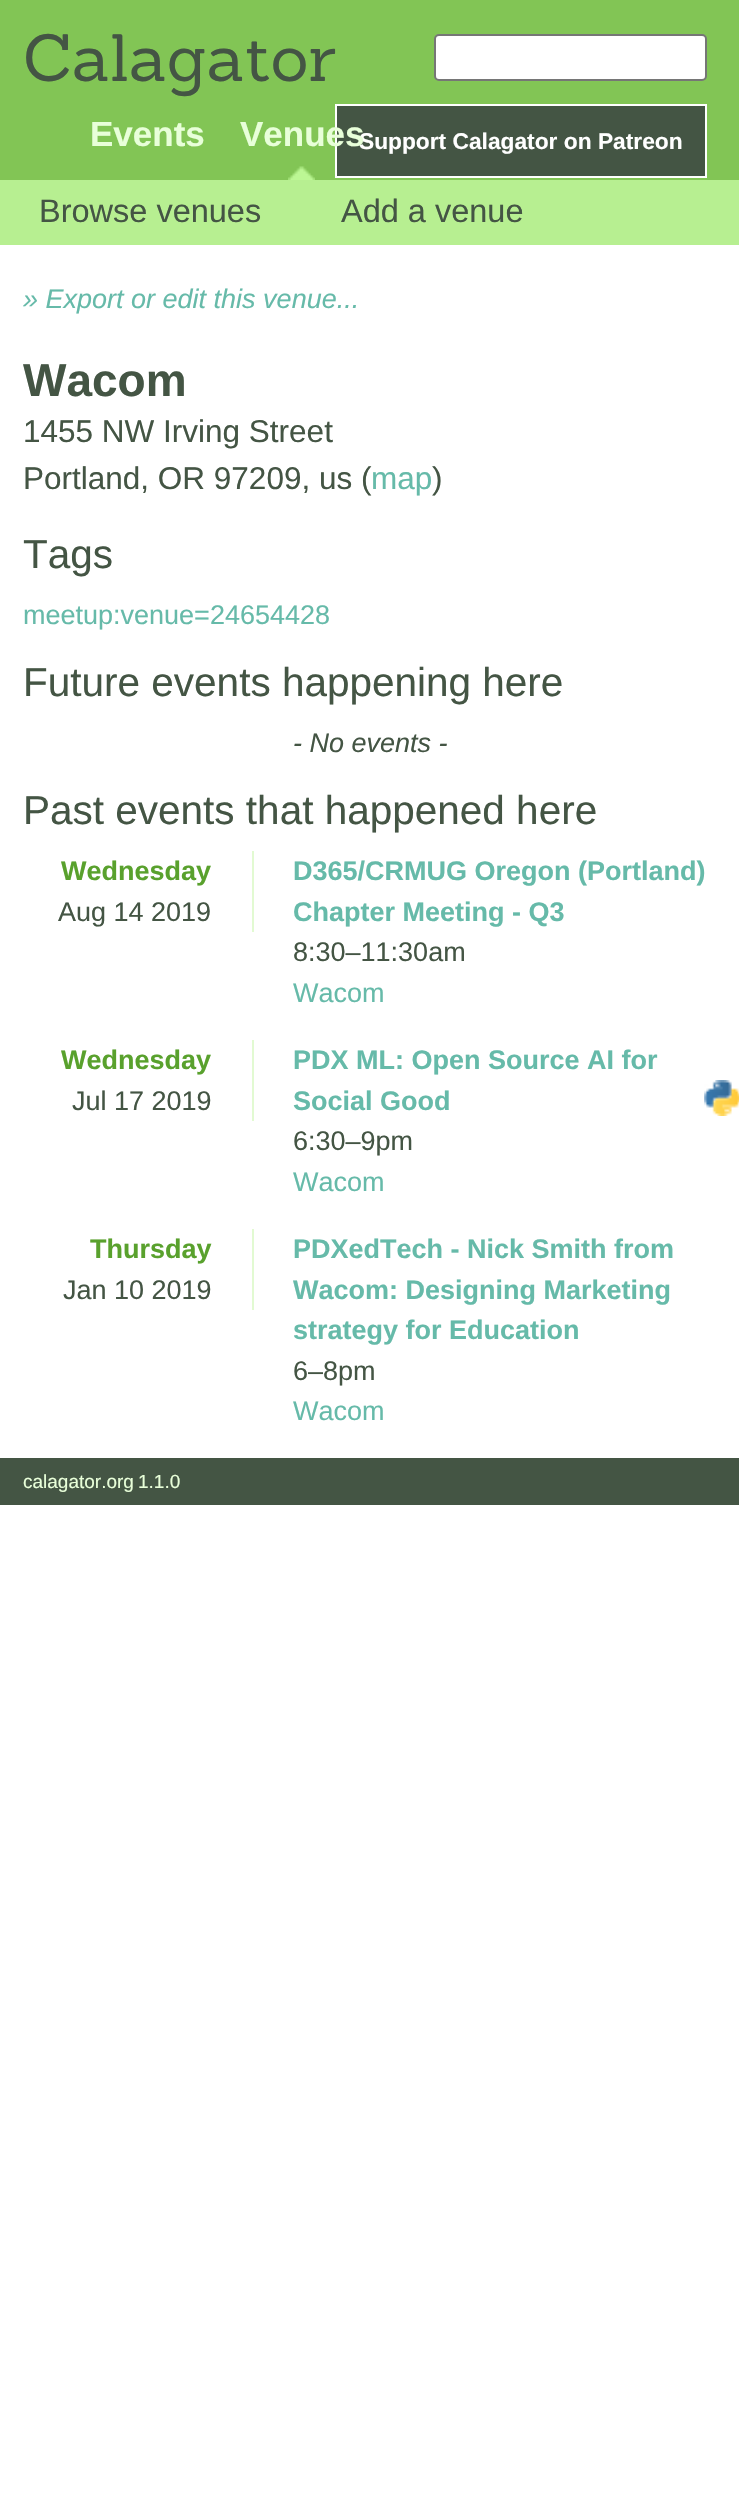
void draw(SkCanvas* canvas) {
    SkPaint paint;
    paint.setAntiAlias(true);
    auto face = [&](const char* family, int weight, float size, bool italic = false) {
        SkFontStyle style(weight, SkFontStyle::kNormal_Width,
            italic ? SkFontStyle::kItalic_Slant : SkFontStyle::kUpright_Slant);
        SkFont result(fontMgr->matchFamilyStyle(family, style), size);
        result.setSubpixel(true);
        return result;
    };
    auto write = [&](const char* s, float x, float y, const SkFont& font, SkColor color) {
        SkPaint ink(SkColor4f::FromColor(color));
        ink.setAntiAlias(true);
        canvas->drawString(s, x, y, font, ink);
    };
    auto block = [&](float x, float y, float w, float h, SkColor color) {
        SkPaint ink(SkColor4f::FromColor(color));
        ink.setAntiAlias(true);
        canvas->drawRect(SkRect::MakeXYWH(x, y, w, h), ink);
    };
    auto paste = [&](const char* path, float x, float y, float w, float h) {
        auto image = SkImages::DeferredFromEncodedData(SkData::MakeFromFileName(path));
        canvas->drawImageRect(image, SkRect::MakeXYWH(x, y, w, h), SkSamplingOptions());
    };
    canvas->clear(SK_ColorWHITE);
    block(0, 0, 739, 180, SkColorSetRGB(130, 197, 85));
    auto kFont1 = face("Sanchez", 400, 65.25f);
    write("Calagator", 23, 81, kFont1, SkColorSetRGB(68, 85, 68));
    paint.setColor(SK_ColorWHITE);
    canvas->drawRoundRect(SkRect::MakeXYWH(435, 35, 271, 45), 4, 4, paint);
    paint.setStyle(SkPaint::kStroke_Style);
    paint.setStrokeWidth(2);
    paint.setColor(SkColorSetRGB(118, 118, 118));
    canvas->drawRoundRect(SkRect::MakeXYWH(435, 35, 271, 45), 4, 4, paint);
    auto kFont2 = face("Liberation Sans", 700, 35);
    write("Events", 90, 146, kFont2, SkColorSetRGB(232, 255, 217));
    paste("pic1.png", 288, 166, 27, 14);
    paint.setStyle(SkPaint::kFill_Style);
    paint.setColor(SkColorSetRGB(68, 85, 68));
    canvas->drawRect(SkRect::MakeXYWH(336, 105, 370, 72), paint);
    paint.setStyle(SkPaint::kStroke_Style);
    paint.setColor(SK_ColorWHITE);
    canvas->drawRect(SkRect::MakeXYWH(336, 105, 370, 72), paint);
    auto kFont3 = face("Liberation Sans", 700, 22.75f);
    write("Support Calagator on Patreon", 359, 149, kFont3, SK_ColorWHITE);
    write("Venues", 240, 146, kFont2, SkColorSetRGB(232, 255, 217));
    block(0, 180, 739, 65, SkColorSetRGB(183, 239, 145));
    auto kFont4 = face("Liberation Sans", 400, 32.5f);
    write("Browse venues", 39, 222, kFont4, SkColorSetRGB(68, 85, 68));
    write("Add a venue", 341, 222, kFont4, SkColorSetRGB(68, 85, 68));
    auto kFont5 = face("Liberation Sans", 400, 27, true);
    write("» Export or edit this venue...", 23, 308, kFont5, SkColorSetRGB(102, 186, 169));
    auto kFont6 = face("Liberation Sans", 700, 46);
    write("Wacom", 23, 396, kFont6, SkColorSetRGB(68, 85, 68));
    auto kFont7 = face("Liberation Sans", 400, 31.5f);
    write("1455 NW Irving Street", 23, 442, kFont7, SkColorSetRGB(68, 85, 68));
    write("Portland, OR 97209, us (", 23, 489, kFont7, SkColorSetRGB(68, 85, 68));
    write("map", 371, 489, kFont7, SkColorSetRGB(102, 186, 169));
    write(")", 432, 489, kFont7, SkColorSetRGB(68, 85, 68));
    auto kFont8 = face("Liberation Sans", 400, 40.5f);
    write("Tags", 23, 568, kFont8, SkColorSetRGB(68, 85, 68));
    auto kFont9 = face("Liberation Sans", 400, 27);
    write("meetup:venue=24654428", 23, 624, kFont9, SkColorSetRGB(102, 186, 169));
    write("Future events happening here", 23, 696, kFont8, SkColorSetRGB(68, 85, 68));
    write("- No events -", 293, 752, kFont5, SkColorSetRGB(68, 85, 68));
    write("Past events that happened here", 23, 824, kFont8, SkColorSetRGB(68, 85, 68));
    block(252, 851, 2, 81, SkColorSetRGB(226, 250, 210));
    auto kFont10 = face("Liberation Sans", 700, 27);
    write("Wednesday", 61, 880, kFont10, SkColorSetRGB(89, 161, 45));
    write("Aug 14 2019", 58, 921, kFont9, SkColorSetRGB(68, 85, 68));
    write("D365/CRMUG Oregon (Portland)", 293, 880, kFont10, SkColorSetRGB(102, 186, 169));
    write("Chapter Meeting - Q3", 293, 921, kFont10, SkColorSetRGB(102, 186, 169));
    write("8:30–11:30am", 293, 961, kFont9, SkColorSetRGB(68, 85, 68));
    write("Wacom", 293, 1002, kFont9, SkColorSetRGB(102, 186, 169));
    block(252, 1040, 2, 81, SkColorSetRGB(226, 250, 210));
    write("Wednesday", 61, 1069, kFont10, SkColorSetRGB(89, 161, 45));
    write("Jul 17 2019", 72, 1110, kFont9, SkColorSetRGB(68, 85, 68));
    write("PDX ML: Open Source AI for", 293, 1069, kFont10, SkColorSetRGB(102, 186, 169));
    write("Social Good", 293, 1110, kFont10, SkColorSetRGB(102, 186, 169));
    paste("pic2.png", 704, 1080, 35, 36);
    write("6:30–9pm", 293, 1150, kFont9, SkColorSetRGB(68, 85, 68));
    write("Wacom", 293, 1191, kFont9, SkColorSetRGB(102, 186, 169));
    block(252, 1229, 2, 81, SkColorSetRGB(226, 250, 210));
    write("Thursday", 90, 1258, kFont10, SkColorSetRGB(89, 161, 45));
    write("Jan 10 2019", 63, 1299, kFont9, SkColorSetRGB(68, 85, 68));
    write("PDXedTech - Nick Smith from", 293, 1258, kFont10, SkColorSetRGB(102, 186, 169));
    write("Wacom: Designing Marketing", 293, 1299, kFont10, SkColorSetRGB(102, 186, 169));
    write("strategy for Education", 293, 1339, kFont10, SkColorSetRGB(102, 186, 169));
    write("6–8pm", 293, 1380, kFont9, SkColorSetRGB(68, 85, 68));
    write("Wacom", 293, 1420, kFont9, SkColorSetRGB(102, 186, 169));
    block(0, 1458, 739, 47, SkColorSetRGB(68, 85, 68));
    auto kFont11 = face("Liberation Sans", 400, 19);
    write("calagator.org", 23, 1488, kFont11, SkColorSetRGB(232, 255, 217));
    write("1.1.0", 138, 1488, kFont11, SkColorSetRGB(232, 255, 217));
}
